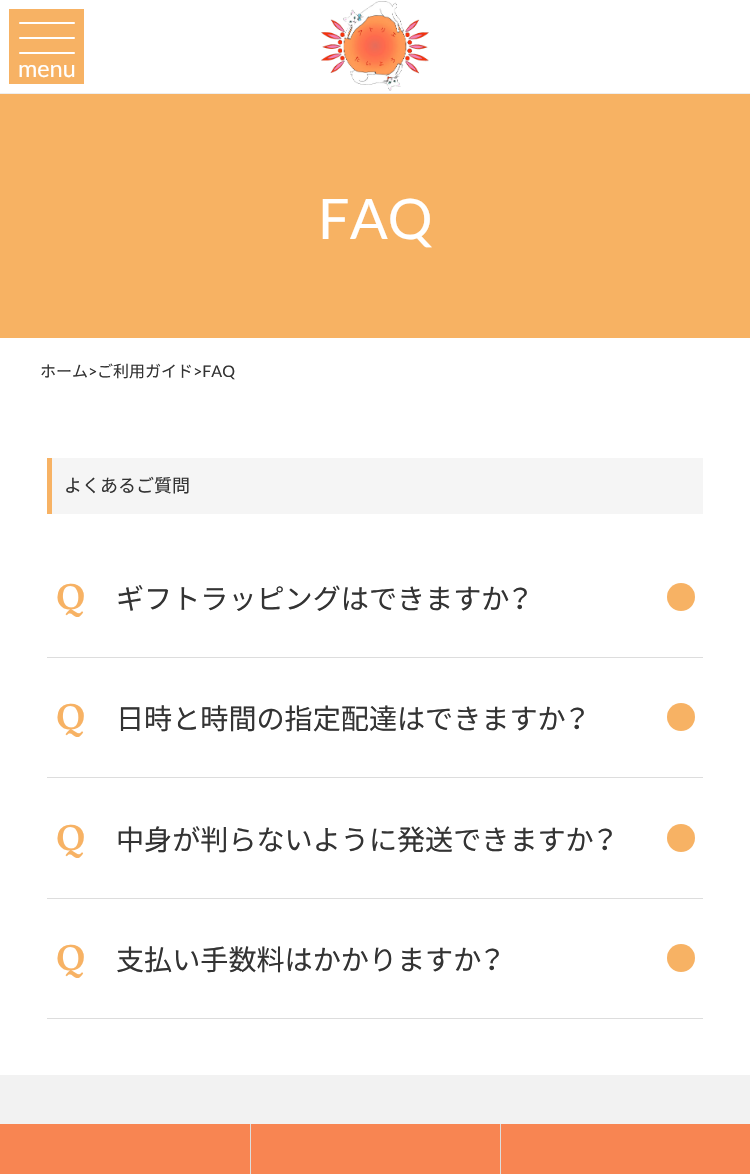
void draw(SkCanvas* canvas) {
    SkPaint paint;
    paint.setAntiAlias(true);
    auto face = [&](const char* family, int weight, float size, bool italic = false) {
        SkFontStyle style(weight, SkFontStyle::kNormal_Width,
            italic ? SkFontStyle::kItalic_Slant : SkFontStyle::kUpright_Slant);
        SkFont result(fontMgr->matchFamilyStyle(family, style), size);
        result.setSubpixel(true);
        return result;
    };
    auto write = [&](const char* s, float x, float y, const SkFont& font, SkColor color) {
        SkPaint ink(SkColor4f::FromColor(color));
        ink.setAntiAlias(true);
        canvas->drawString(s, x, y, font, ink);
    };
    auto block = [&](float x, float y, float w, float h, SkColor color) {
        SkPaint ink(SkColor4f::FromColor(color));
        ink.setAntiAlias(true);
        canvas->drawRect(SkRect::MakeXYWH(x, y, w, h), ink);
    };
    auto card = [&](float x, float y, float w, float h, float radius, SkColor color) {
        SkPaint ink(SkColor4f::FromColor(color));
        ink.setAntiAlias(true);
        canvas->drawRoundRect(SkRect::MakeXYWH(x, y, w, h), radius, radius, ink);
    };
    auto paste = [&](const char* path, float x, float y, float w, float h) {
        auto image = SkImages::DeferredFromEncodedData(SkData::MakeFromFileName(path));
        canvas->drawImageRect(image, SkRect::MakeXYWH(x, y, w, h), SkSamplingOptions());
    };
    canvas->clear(SK_ColorWHITE);
    block(0, 93, 750, 1, SkColorSetRGB(238, 238, 238));
    block(9, 9, 75, 75, SkColorSetRGB(247, 178, 100));
    card(19, 22, 56, 2, 1, SK_ColorWHITE);
    card(19, 37, 56, 2, 1, SK_ColorWHITE);
    card(19, 52, 56, 2, 1, SK_ColorWHITE);
    auto kFont1 = face("Lato", 400, 23.5f);
    write("menu", 18, 77, kFont1, SK_ColorWHITE);
    paste("pic1.png", 321, 1, 108, 90);
    block(0, 94, 750, 244, SkColorSetRGB(247, 178, 99));
    auto kFont2 = face("Lato", 400, 56);
    write("FAQ", 318, 239, kFont2, SK_ColorWHITE);
    auto kFont3 = face("Noto Sans JP", 400, 16);
    write("ホーム", 40, 377, kFont3, SkColorSetRGB(51, 51, 51));
    auto kFont4 = face("Lato", 400, 16);
    write(">", 88, 377, kFont4, SkColorSetRGB(51, 51, 51));
    write("ご利用ガイド", 97, 377, kFont3, SkColorSetRGB(51, 51, 51));
    write(">FAQ", 193, 377, kFont4, SkColorSetRGB(51, 51, 51));
    block(52, 458, 651, 56, SkColorSetRGB(245, 245, 245));
    block(47, 458, 5, 56, SkColorSetRGB(247, 178, 100));
    auto kFont5 = face("Noto Sans JP", 400, 18);
    write("よくあるご質問", 64, 492, kFont5, SkColorSetRGB(51, 51, 51));
    block(47, 657, 656, 1, SkColorSetRGB(221, 221, 221));
    auto kFont6 = face("Buenard", 700, 38);
    write("Q", 56, 609, kFont6, SkColorSetRGB(247, 178, 100));
    auto kFont7 = face("Noto Sans JP", 400, 28.1f);
    write("ギフトラッピングはできますか", 116, 609, kFont7, SkColorSetRGB(51, 51, 51));
    auto kFont8 = face("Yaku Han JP", 400, 28.1f);
    write("？", 509, 609, kFont8, SkColorSetRGB(51, 51, 51));
    paint.setColor(SkColorSetRGB(247, 178, 100));
    canvas->drawCircle(681, 597, 14, paint);
    block(47, 777, 656, 1, SkColorSetRGB(221, 221, 221));
    write("Q", 56, 729, kFont6, SkColorSetRGB(247, 178, 100));
    write("日時と時間の指定配達はできますか", 116, 729, kFont7, SkColorSetRGB(51, 51, 51));
    write("？", 566, 729, kFont8, SkColorSetRGB(51, 51, 51));
    canvas->drawCircle(681, 717, 14, paint);
    block(47, 898, 656, 1, SkColorSetRGB(221, 221, 221));
    write("Q", 56, 850, kFont6, SkColorSetRGB(247, 178, 100));
    write("中身が判らないように発送できますか", 116, 850, kFont7, SkColorSetRGB(51, 51, 51));
    write("？", 594, 850, kFont8, SkColorSetRGB(51, 51, 51));
    canvas->drawCircle(681, 838, 14, paint);
    block(47, 1018, 656, 1, SkColorSetRGB(221, 221, 221));
    write("Q", 56, 970, kFont6, SkColorSetRGB(247, 178, 100));
    write("支払い手数料はかかりますか", 116, 970, kFont7, SkColorSetRGB(51, 51, 51));
    write("？", 481, 970, kFont8, SkColorSetRGB(51, 51, 51));
    canvas->drawCircle(681, 958, 14, paint);
    block(0, 1075, 750, 49, SkColorSetRGB(242, 242, 242));
    block(0, 1124, 250, 50, SkColorSetRGB(248, 133, 82));
    block(251, 1124, 249, 50, SkColorSetRGB(248, 133, 82));
    block(250, 1124, 1, 50, SkColorSetRGB(221, 221, 221));
    block(501, 1124, 249, 50, SkColorSetRGB(248, 133, 82));
    block(500, 1124, 1, 50, SkColorSetRGB(221, 221, 221));
}
